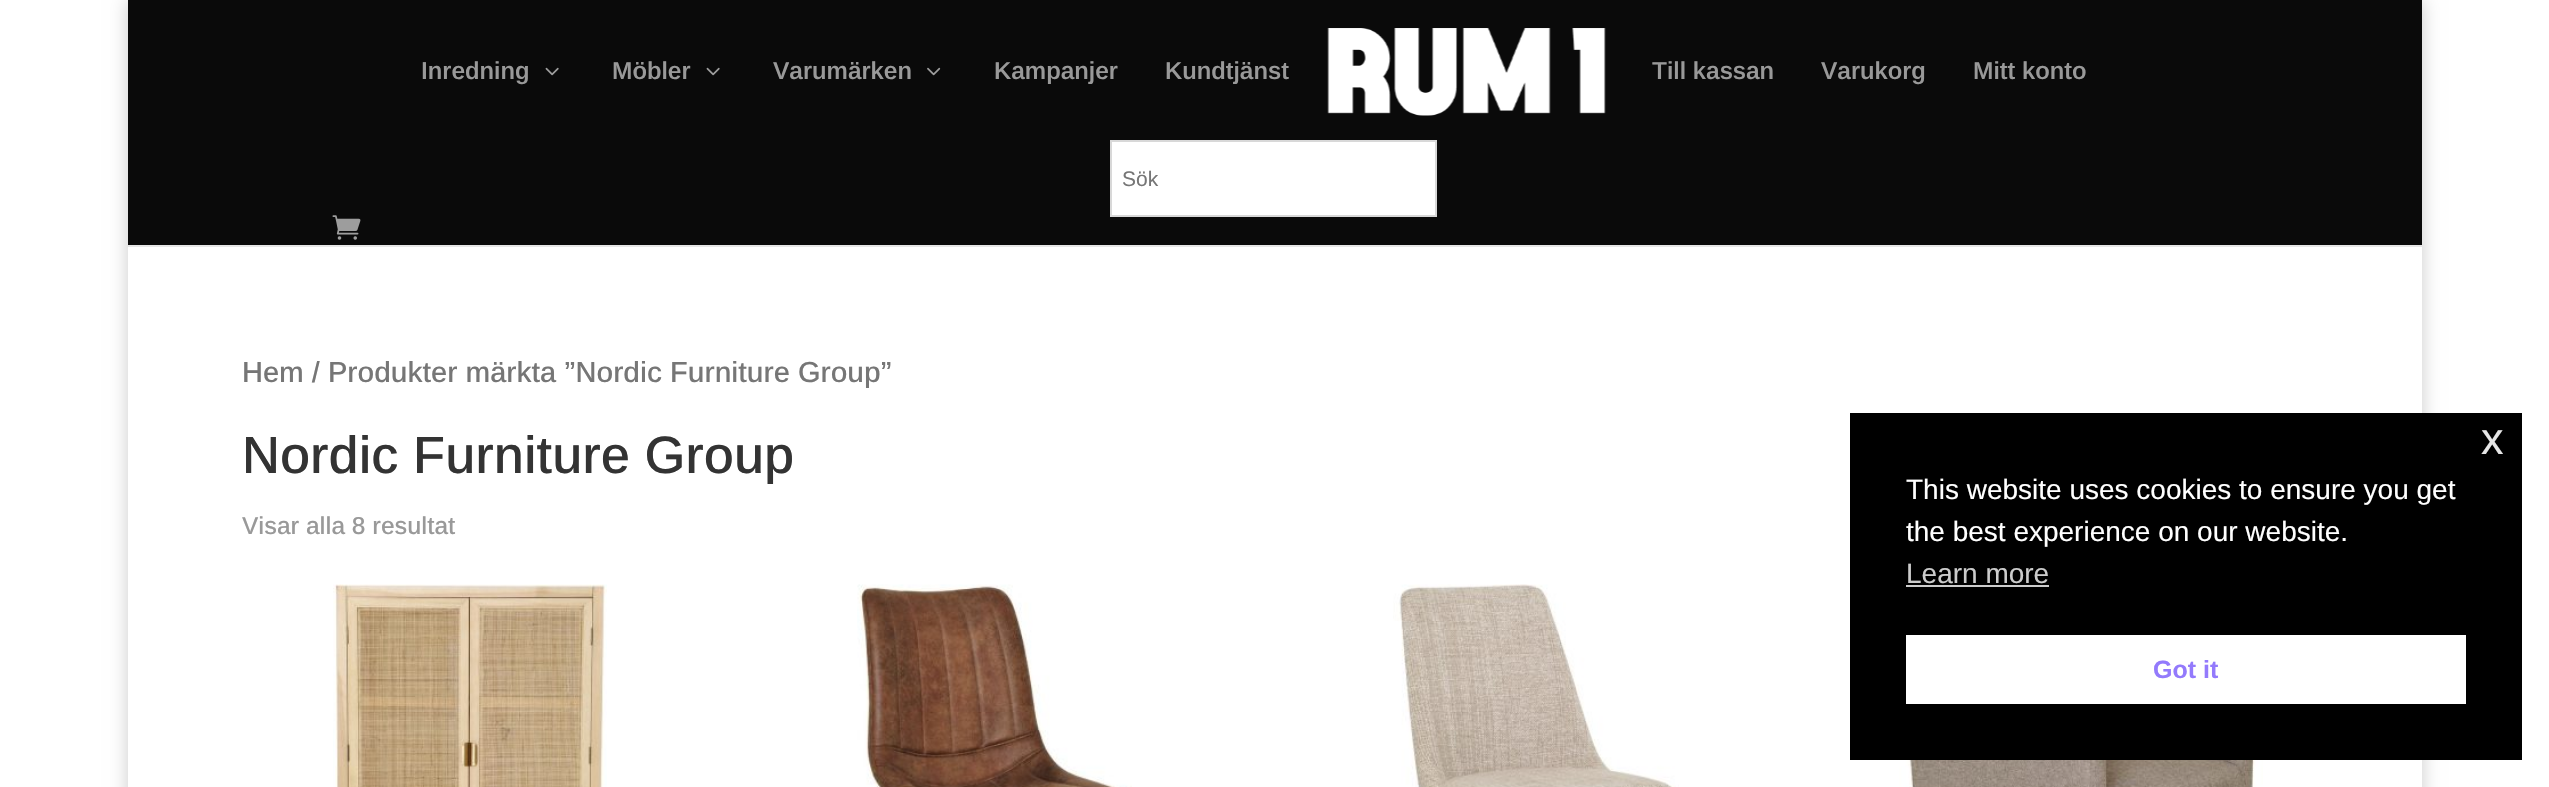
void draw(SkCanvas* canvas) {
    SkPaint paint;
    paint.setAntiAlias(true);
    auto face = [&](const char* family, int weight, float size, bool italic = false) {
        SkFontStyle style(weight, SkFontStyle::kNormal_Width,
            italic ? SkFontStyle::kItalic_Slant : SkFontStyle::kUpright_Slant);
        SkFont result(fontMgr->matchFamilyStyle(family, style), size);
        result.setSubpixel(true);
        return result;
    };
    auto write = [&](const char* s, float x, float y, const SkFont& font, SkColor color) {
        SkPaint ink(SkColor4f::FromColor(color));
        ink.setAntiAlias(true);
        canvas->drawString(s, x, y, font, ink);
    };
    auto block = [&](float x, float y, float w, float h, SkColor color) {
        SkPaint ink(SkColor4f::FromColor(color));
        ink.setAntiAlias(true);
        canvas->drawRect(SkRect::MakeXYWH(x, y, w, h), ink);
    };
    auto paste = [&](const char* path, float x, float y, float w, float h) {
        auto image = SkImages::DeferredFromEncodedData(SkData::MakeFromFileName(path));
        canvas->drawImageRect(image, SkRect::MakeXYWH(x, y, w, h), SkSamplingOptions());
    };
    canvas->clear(SK_ColorWHITE);
    canvas->save();
    canvas->clipPath(SkPathBuilder(SkPathFillType::kEvenOdd).moveTo(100, 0).lineTo(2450, 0).lineTo(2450, 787).lineTo(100, 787).close().moveTo(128, 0).lineTo(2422, 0).lineTo(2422, 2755).lineTo(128, 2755).close().detach(), true);
    paint.setColor(SkColorSetARGB(51, 0, 0, 0));
    paint.setMaskFilter(SkMaskFilter::MakeBlur(kNormal_SkBlurStyle, 9));
    canvas->drawRect(SkRect::MakeXYWH(128, 0, 2294, 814), paint);
    paint.setMaskFilter(nullptr);
    canvas->restore();
    block(128, 245, 2294, 2, SkColorSetRGB(230, 230, 230));
    block(128, 0, 2294, 245, SkColorSetRGB(10, 10, 10));
    auto kFont1 = face("Arimo", 600, 24.5f);
    write("Inredning", 421, 79, kFont1, SkColorSetRGB(153, 153, 153));
    paste("pic1.png", 545, 67, 14, 9);
    write("Möbler", 612, 79, kFont1, SkColorSetRGB(153, 153, 153));
    paste("pic1.png", 706, 67, 14, 9);
    write("Varumärken", 773, 79, kFont1, SkColorSetRGB(153, 153, 153));
    paste("pic2.png", 927, 67, 14, 9);
    write("Kampanjer", 994, 79, kFont1, SkColorSetRGB(153, 153, 153));
    write("Kundtjänst", 1165, 79, kFont1, SkColorSetRGB(153, 153, 153));
    paste("pic3.png", 1327, 28, 279, 88);
    write("Till kassan", 1652, 79, kFont1, SkColorSetRGB(153, 153, 153));
    write("Varukorg", 1821, 79, kFont1, SkColorSetRGB(153, 153, 153));
    write("Mitt konto", 1973, 79, kFont1, SkColorSetRGB(153, 153, 153));
    paint.setColor(SK_ColorWHITE);
    canvas->drawRect(SkRect::MakeXYWH(1111, 141, 325, 75), paint);
    paint.setStyle(SkPaint::kStroke_Style);
    paint.setStrokeWidth(2);
    paint.setColor(SkColorSetRGB(216, 216, 216));
    canvas->drawRect(SkRect::MakeXYWH(1111, 141, 325, 75), paint);
    auto kFont2 = face("Arimo", 400, 21);
    write("Sök", 1122, 186, kFont2, SkColorSetRGB(118, 118, 118));
    paste("pic4.png", 332, 215, 29, 25);
    auto kFont3 = face("Arimo", 500, 29);
    write("Hem / Produkter märkta ”Nordic Furniture Group”", 242, 382, kFont3, SkColorSetRGB(118, 118, 118));
    auto kFont4 = face("Arimo", 500, 52.5f);
    write("Nordic Furniture Group", 242, 473, kFont4, SkColorSetRGB(51, 51, 51));
    auto kFont5 = face("Arimo", 500, 24.5f);
    write("Visar alla 8 resultat", 242, 534, kFont5, SkColorSetRGB(153, 153, 153));
    paste("pic5.png", 333, 584, 274, 203);
    paste("pic6.png", 857, 584, 275, 203);
    paste("pic7.png", 1393, 584, 286, 203);
    paste("pic8.png", 1882, 760, 381, 27);
    block(1850, 413, 672, 347, SK_ColorBLACK);
    auto kFont6 = face("Liberation Sans", 400, 45);
    write("x", 2481, 454, kFont6, SkColorSetRGB(230, 230, 230));
    auto kFont7 = face("Liberation Sans", 400, 28);
    write("This website uses cookies to ensure you get", 1906, 499, kFont7, SK_ColorWHITE);
    write("the best experience on our website.", 1906, 541, kFont7, SK_ColorWHITE);
    write("Learn more", 1906, 583, kFont7, SkColorSetRGB(204, 204, 204));
    block(1906, 585, 143, 2, SkColorSetRGB(204, 204, 204));
    block(1906, 635, 560, 69, SK_ColorWHITE);
    auto kFont8 = face("Liberation Sans", 700, 25);
    write("Got it", 2153, 678, kFont8, SkColorSetRGB(147, 122, 252));
}
